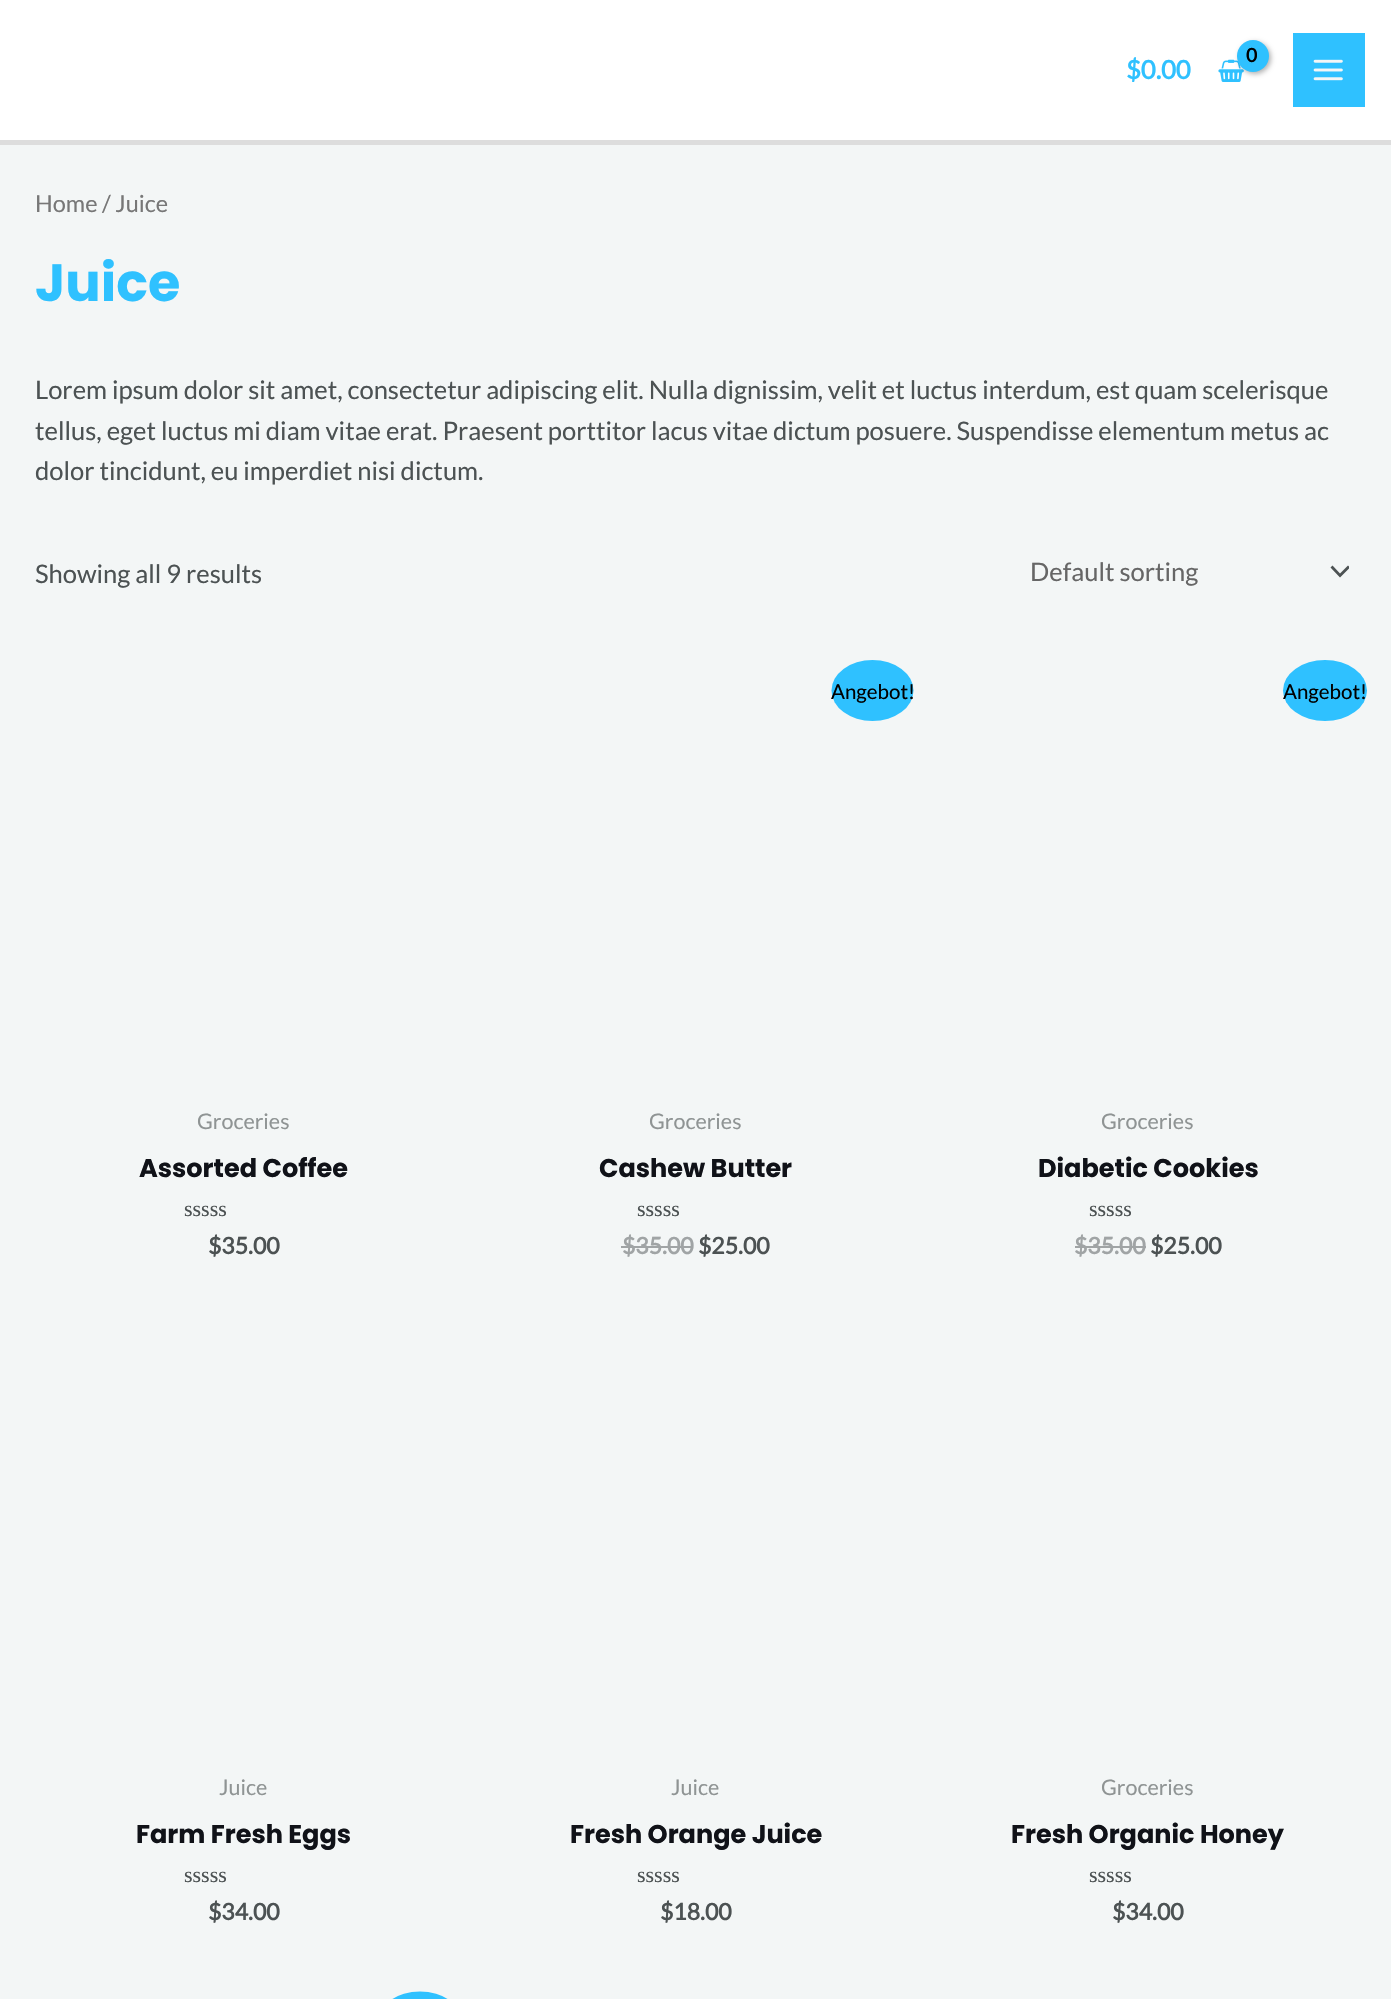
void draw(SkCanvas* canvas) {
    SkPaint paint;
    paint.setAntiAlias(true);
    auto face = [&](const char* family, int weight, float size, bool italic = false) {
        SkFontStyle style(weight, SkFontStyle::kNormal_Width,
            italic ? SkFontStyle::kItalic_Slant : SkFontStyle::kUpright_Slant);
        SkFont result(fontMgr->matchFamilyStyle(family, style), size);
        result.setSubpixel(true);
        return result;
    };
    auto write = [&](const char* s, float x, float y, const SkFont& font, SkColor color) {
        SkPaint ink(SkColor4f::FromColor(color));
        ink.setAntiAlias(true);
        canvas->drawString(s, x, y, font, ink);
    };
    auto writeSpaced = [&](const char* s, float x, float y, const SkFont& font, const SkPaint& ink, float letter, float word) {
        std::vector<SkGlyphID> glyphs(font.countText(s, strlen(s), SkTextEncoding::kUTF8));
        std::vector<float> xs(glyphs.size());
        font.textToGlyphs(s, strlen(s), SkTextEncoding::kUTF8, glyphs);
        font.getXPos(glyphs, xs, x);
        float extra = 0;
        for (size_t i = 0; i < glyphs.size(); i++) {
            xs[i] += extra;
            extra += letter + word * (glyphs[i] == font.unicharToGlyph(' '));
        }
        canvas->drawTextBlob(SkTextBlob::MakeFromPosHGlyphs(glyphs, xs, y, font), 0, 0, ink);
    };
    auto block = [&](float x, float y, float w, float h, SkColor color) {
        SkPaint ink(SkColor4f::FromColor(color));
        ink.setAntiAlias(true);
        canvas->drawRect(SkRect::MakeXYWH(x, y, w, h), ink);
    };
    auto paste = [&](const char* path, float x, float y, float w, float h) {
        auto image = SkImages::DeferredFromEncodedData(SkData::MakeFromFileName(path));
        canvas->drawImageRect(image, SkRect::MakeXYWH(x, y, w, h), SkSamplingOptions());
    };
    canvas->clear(SkColorSetRGB(243, 246, 246));
    block(0, 0, 1391, 140, SK_ColorWHITE);
    block(0, 140, 1391, 5, SkColorSetRGB(221, 221, 221));
    paste("pic1.png", 1218, 59, 26, 23);
    paint.setColor(SkColorSetARGB(77, 0, 0, 0));
    paint.setMaskFilter(SkMaskFilter::MakeBlur(kNormal_SkBlurStyle, 2.5f));
    canvas->drawRoundRect(SkRect::MakeXYWH(1239, 42, 32, 32), 16, 16, paint);
    paint.setMaskFilter(nullptr);
    paint.setColor(SkColorSetRGB(47, 193, 255));
    canvas->drawCircle(1253, 56, 16, paint);
    auto kFont1 = face("Lato", 700, 19);
    paint.setColor(SK_ColorBLACK);
    writeSpaced("0", 1246, 62, kFont1, paint, -1, 0);
    auto kFont2 = face("Lato", 700, 25.55f);
    write("$0.00", 1126, 79, kFont2, SkColorSetRGB(47, 193, 255));
    block(1293, 33, 72, 74, SkColorSetRGB(47, 193, 255));
    paste("pic2.png", 1313, 59, 30, 22);
    auto kFont3 = face("Lato", 400, 23.5f);
    write("Home / Juice", 35, 212, kFont3, SkColorSetRGB(119, 119, 119));
    auto kFont4 = face("Poppins", 700, 52.5f);
    write("Juice", 35, 301, kFont4, SkColorSetRGB(47, 193, 255));
    auto kFont5 = face("Lato", 400, 25.55f);
    write("Lorem ipsum dolor sit amet, consectetur adipiscing elit. Nulla dignissim, velit et luctus interdum, est quam scelerisque", 35, 399, kFont5, SkColorSetRGB(76, 82, 83));
    write("tellus, eget luctus mi diam vitae erat. Praesent porttitor lacus vitae dictum posuere. Suspendisse elementum metus ac", 35, 440, kFont5, SkColorSetRGB(76, 82, 83));
    write("dolor tincidunt, eu imperdiet nisi dictum.", 35, 480, kFont5, SkColorSetRGB(76, 82, 83));
    write("Showing all 9 results", 35, 583, kFont5, SkColorSetRGB(76, 82, 83));
    canvas->save();
    canvas->clipRect(SkRect::MakeXYWH(1330, 565, 19, 13));
    paint.setColor(SkColorSetRGB(76, 82, 83));
    canvas->drawPath(SkPathBuilder().moveTo(1330.5f, 567.5f).lineTo(1340, 577.5f).lineTo(1350, 567.5f).lineTo(1348, 565.5f).lineTo(1340, 573.5f).lineTo(1332.5f, 565.5f).close().detach(), paint);
    canvas->restore();
    write("Default sorting", 1030, 581, kFont5, SkColorSetRGB(102, 102, 102));
    auto kFont6 = face("Lato", 400, 21.5f);
    write("Groceries", 197, 1129, kFont6, SkColorSetRGB(143, 148, 148));
    auto kFont7 = face("Poppins", 700, 25.55f);
    write("Assorted Coffee", 139, 1177, kFont7, SkColorSetRGB(16, 18, 24));
    auto kFont8 = face("Liberation Serif", 400, 22);
    write("sssss", 184, 1216, kFont8, SkColorSetRGB(76, 82, 83));
    auto kFont9 = face("Lato", 700, 23);
    write("$35.00", 208, 1254, kFont9, SkColorSetRGB(76, 82, 83));
    paint.setColor(SkColorSetRGB(47, 193, 255));
    canvas->drawOval(SkRect::MakeXYWH(831.5f, 660, 82, 61), paint);
    auto kFont10 = face("Lato", 400, 20.5f);
    write("Angebot!", 831, 699, kFont10, SK_ColorBLACK);
    write("Groceries", 649, 1129, kFont6, SkColorSetRGB(143, 148, 148));
    write("Cashew Butter", 599, 1177, kFont7, SkColorSetRGB(16, 18, 24));
    write("sssss", 637, 1216, kFont8, SkColorSetRGB(76, 82, 83));
    write("$35.00", 622, 1254, kFont9, SkColorSetRGB(160, 164, 165));
    block(621, 1246, 72, 2, SkColorSetRGB(160, 164, 165));
    write("$25.00", 698, 1254, kFont9, SkColorSetRGB(76, 82, 83));
    canvas->drawOval(SkRect::MakeXYWH(1283, 660, 84, 61), paint);
    write("Angebot!", 1283, 699, kFont10, SK_ColorBLACK);
    write("Groceries", 1101, 1129, kFont6, SkColorSetRGB(143, 148, 148));
    write("Diabetic Cookies", 1038, 1177, kFont7, SkColorSetRGB(16, 18, 24));
    write("sssss", 1089, 1216, kFont8, SkColorSetRGB(76, 82, 83));
    write("$35.00", 1074, 1254, kFont9, SkColorSetRGB(160, 164, 165));
    block(1075, 1246, 71, 2, SkColorSetRGB(160, 164, 165));
    write("$25.00", 1150, 1254, kFont9, SkColorSetRGB(76, 82, 83));
    write("Juice", 219, 1795, kFont6, SkColorSetRGB(143, 148, 148));
    write("Farm Fresh Eggs", 136, 1843, kFont7, SkColorSetRGB(16, 18, 24));
    write("sssss", 184, 1882, kFont8, SkColorSetRGB(76, 82, 83));
    write("$34.00", 208, 1920, kFont9, SkColorSetRGB(76, 82, 83));
    write("Juice", 671, 1795, kFont6, SkColorSetRGB(143, 148, 148));
    write("Fresh Orange Juice", 570, 1843, kFont7, SkColorSetRGB(16, 18, 24));
    write("sssss", 637, 1882, kFont8, SkColorSetRGB(76, 82, 83));
    write("$18.00", 660, 1920, kFont9, SkColorSetRGB(76, 82, 83));
    write("Groceries", 1101, 1795, kFont6, SkColorSetRGB(143, 148, 148));
    write("Fresh Organic Honey", 1011, 1843, kFont7, SkColorSetRGB(16, 18, 24));
    write("sssss", 1089, 1882, kFont8, SkColorSetRGB(76, 82, 83));
    write("$34.00", 1112, 1920, kFont9, SkColorSetRGB(76, 82, 83));
    canvas->drawOval(SkRect::MakeXYWH(378, 1991.5f, 84, 61), paint);
}
